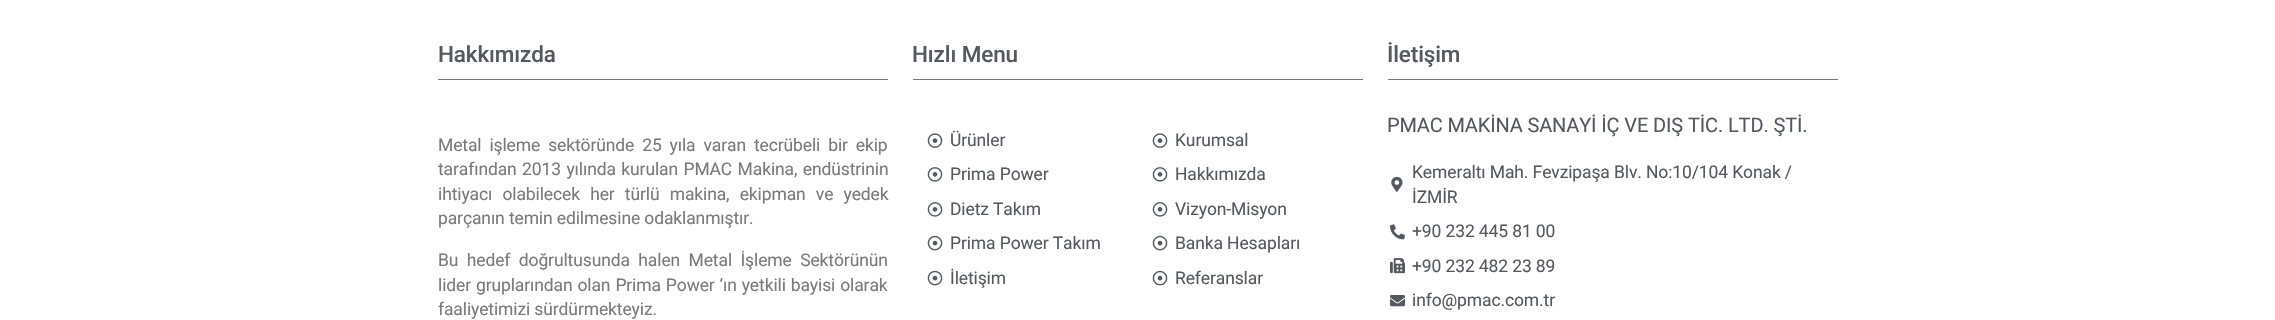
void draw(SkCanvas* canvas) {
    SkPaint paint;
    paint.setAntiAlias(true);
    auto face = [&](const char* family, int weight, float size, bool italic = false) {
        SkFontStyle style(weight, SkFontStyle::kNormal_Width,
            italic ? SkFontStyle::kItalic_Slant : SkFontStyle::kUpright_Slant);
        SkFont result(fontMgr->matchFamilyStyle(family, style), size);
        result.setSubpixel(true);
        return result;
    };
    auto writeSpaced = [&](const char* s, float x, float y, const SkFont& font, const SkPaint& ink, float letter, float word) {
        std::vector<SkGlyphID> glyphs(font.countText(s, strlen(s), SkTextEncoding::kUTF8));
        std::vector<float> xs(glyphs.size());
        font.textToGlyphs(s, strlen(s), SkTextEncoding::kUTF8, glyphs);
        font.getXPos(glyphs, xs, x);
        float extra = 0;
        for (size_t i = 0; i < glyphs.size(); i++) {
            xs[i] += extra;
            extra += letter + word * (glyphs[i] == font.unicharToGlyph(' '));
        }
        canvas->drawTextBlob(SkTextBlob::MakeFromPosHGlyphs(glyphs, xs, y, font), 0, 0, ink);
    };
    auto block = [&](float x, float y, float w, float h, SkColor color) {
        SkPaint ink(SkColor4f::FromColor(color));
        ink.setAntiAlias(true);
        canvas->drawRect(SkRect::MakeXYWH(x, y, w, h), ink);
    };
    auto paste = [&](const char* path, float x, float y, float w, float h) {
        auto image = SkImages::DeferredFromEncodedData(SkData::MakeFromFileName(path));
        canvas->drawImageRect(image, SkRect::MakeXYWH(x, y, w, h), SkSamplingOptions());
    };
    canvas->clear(SK_ColorWHITE);
    auto kFont1 = face("Roboto", 500, 22.5f);
    paint.setColor(SkColorSetRGB(84, 89, 95));
    writeSpaced("Hakkımızda", 438, 62, kFont1, paint, -0.12f, 0);
    block(438, 79, 450, 1, SkColorSetRGB(122, 122, 122));
    auto kFont2 = face("Roboto", 400, 17.5f);
    paint.setColor(SkColorSetRGB(122, 122, 122));
    writeSpaced("Metal işleme sektöründe 25 yıla varan tecrübeli bir ekip", 438, 151, kFont2, paint, -0.12f, 3.75f);
    writeSpaced("tarafından 2013 yılında kurulan PMAC Makina, endüstrinin", 438, 175, kFont2, paint, -0.12f, 1.25f);
    writeSpaced("ihtiyacı olabilecek her türlü makina, ekipman ve yedek", 438, 200, kFont2, paint, -0.12f, 6);
    writeSpaced("parçanın temin edilmesine odaklanmıştır.", 438, 224, kFont2, paint, -0.12f, 0);
    writeSpaced("Bu hedef doğrultusunda halen Metal İşleme Sektörünün", 438, 266, kFont2, paint, -0.12f, 4.25f);
    writeSpaced("lider gruplarından olan Prima Power ‘ın yetkili bayisi olarak", 438, 291, kFont2, paint, -0.12f, 0.75f);
    writeSpaced("faaliyetimizi sürdürmekteyiz.", 438, 315, kFont2, paint, -0.12f, 0);
    paint.setColor(SkColorSetRGB(84, 89, 95));
    writeSpaced("Hızlı Menu", 912, 62, kFont1, paint, -0.12f, 0);
    block(913, 79, 450, 1, SkColorSetRGB(122, 122, 122));
    paste("pic1.png", 927, 133, 16, 15);
    writeSpaced("Ürünler", 950, 146, kFont2, paint, -0.12f, 0);
    paste("pic2.png", 927, 167, 16, 15);
    writeSpaced("Prima Power", 950, 180, kFont2, paint, -0.12f, 0);
    paste("pic2.png", 927, 202, 16, 15);
    writeSpaced("Dietz Takım", 950, 215, kFont2, paint, -0.12f, 0);
    paste("pic3.png", 927, 235, 16, 16);
    writeSpaced("Prima Power Takım", 950, 249, kFont2, paint, -0.12f, 0);
    paste("pic3.png", 927, 270, 16, 16);
    writeSpaced("İletişim", 950, 284, kFont2, paint, -0.12f, 0);
    paste("pic1.png", 1152, 133, 16, 15);
    writeSpaced("Kurumsal", 1175, 146, kFont2, paint, -0.12f, 0);
    paste("pic2.png", 1152, 167, 16, 15);
    writeSpaced("Hakkımızda", 1175, 180, kFont2, paint, -0.12f, 0);
    paste("pic2.png", 1152, 202, 16, 15);
    writeSpaced("Vizyon-Misyon", 1175, 215, kFont2, paint, -0.12f, 0);
    paste("pic3.png", 1152, 235, 16, 16);
    writeSpaced("Banka Hesapları", 1175, 249, kFont2, paint, -0.12f, 0);
    paste("pic3.png", 1152, 270, 16, 16);
    writeSpaced("Referanslar", 1175, 284, kFont2, paint, -0.12f, 0);
    writeSpaced("İletişim", 1387, 62, kFont1, paint, -0.12f, 0);
    block(1388, 79, 450, 1, SkColorSetRGB(122, 122, 122));
    auto kFont3 = face("Roboto", 400, 20);
    writeSpaced("PMAC MAKİNA SANAYİ İÇ VE DIŞ TİC. LTD. ŞTİ.", 1387, 132, kFont3, paint, -0.12f, 0);
    paste("pic4.png", 1391, 176, 12, 16);
    writeSpaced("Kemeraltı Mah. Fevzipaşa Blv. No:10/104 Konak /", 1412, 178, kFont2, paint, -0.12f, 0);
    writeSpaced("İZMİR", 1412, 203, kFont2, paint, -0.12f, 0);
    paste("pic5.png", 1390, 224, 15, 16);
    writeSpaced("+90 232 445 81 00", 1412, 237, kFont2, paint, -0.12f, 0);
    paste("pic6.png", 1390, 258, 15, 16);
    writeSpaced("+90 232 482 23 89", 1412, 272, kFont2, paint, -0.12f, 0);
    paste("pic7.png", 1390, 295, 15, 12);
    writeSpaced("info@pmac.com.tr", 1412, 306, kFont2, paint, -0.12f, 0);
}
